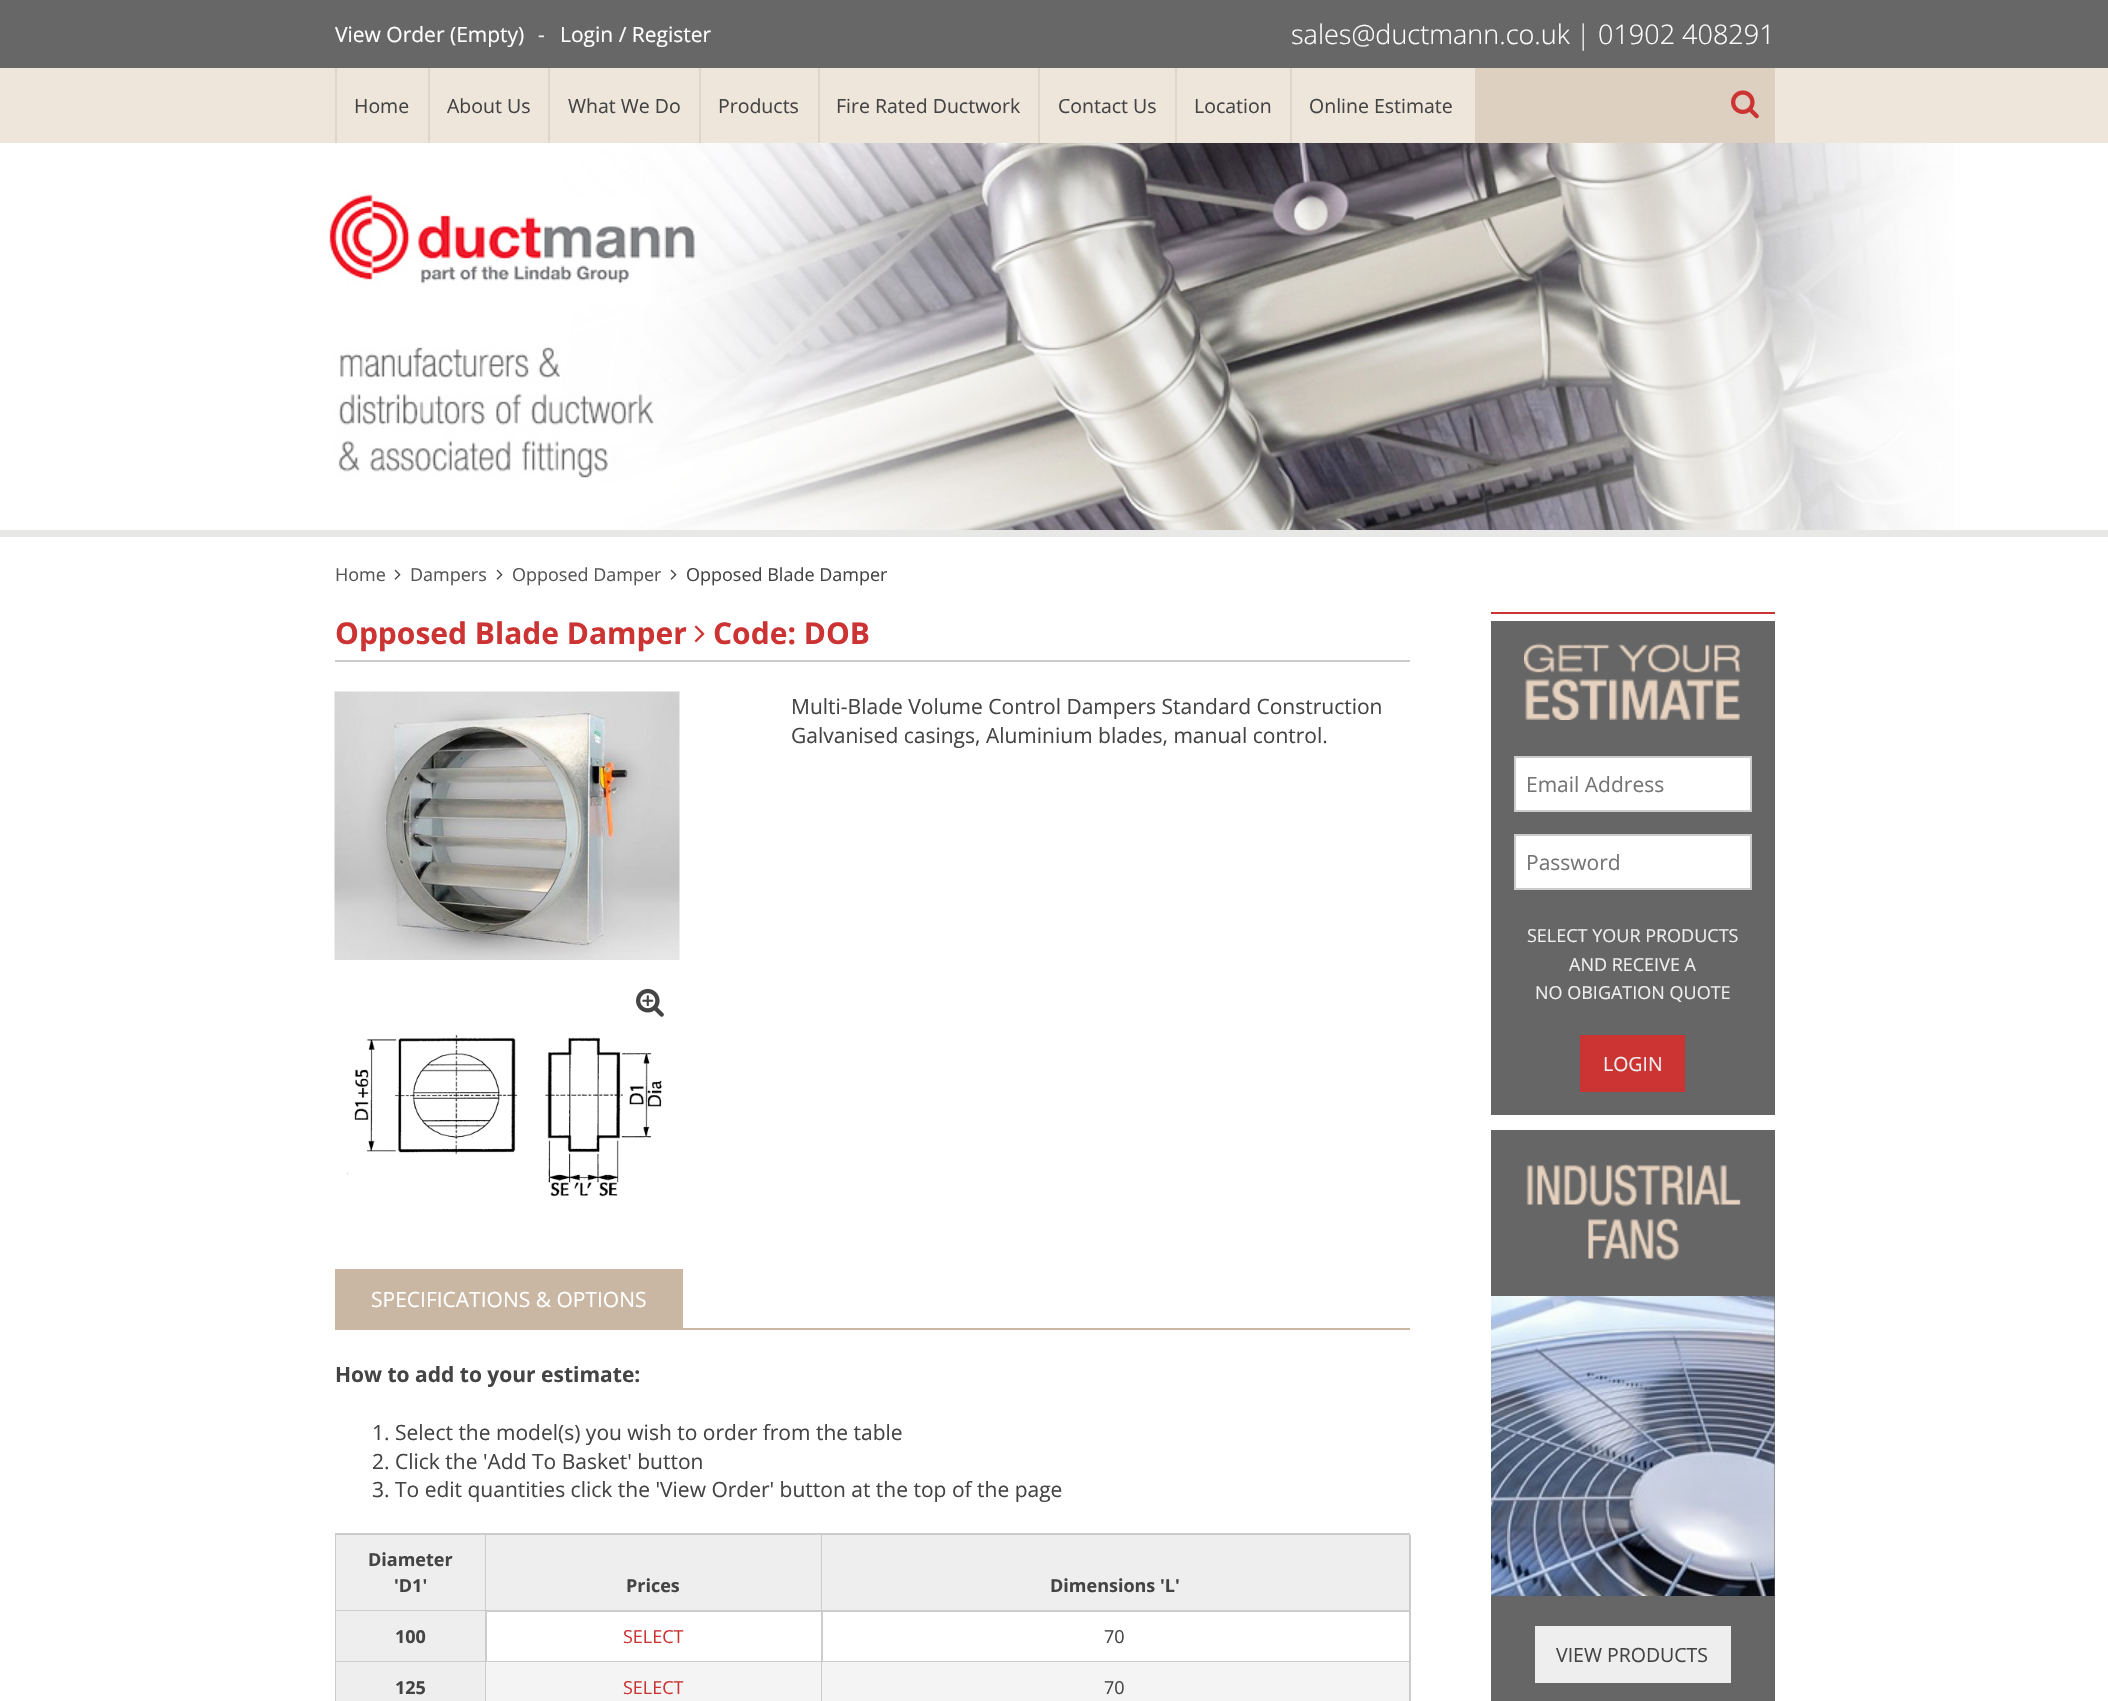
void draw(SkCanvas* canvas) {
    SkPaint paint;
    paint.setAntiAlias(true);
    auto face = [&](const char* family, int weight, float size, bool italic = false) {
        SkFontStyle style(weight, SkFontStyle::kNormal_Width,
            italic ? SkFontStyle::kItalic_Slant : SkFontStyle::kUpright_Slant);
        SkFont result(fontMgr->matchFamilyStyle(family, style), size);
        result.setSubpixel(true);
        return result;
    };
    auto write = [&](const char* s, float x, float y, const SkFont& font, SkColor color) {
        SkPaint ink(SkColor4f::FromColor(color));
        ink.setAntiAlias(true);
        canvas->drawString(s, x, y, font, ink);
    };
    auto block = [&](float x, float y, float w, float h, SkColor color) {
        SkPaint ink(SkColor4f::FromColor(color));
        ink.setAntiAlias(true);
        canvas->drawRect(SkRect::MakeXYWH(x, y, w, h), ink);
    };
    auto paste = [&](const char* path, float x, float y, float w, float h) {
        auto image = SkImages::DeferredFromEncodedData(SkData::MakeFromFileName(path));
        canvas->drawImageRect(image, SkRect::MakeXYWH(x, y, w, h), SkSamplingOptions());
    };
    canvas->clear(SK_ColorWHITE);
    block(0, 0, 2108, 68, SkColorSetRGB(103, 103, 103));
    auto kFont1 = face("Open Sans", 400, 21);
    write("View Order (Empty)", 335, 42, kFont1, SK_ColorWHITE);
    write("-", 538, 42, kFont1, SkColorSetRGB(238, 238, 238));
    write("Login / Register", 560, 42, kFont1, SK_ColorWHITE);
    auto kFont2 = face("Open Sans", 300, 27);
    write("sales@ductmann.co.uk", 1291, 44, kFont2, SK_ColorWHITE);
    write("|", 1576, 44, kFont2, SkColorSetRGB(238, 238, 238));
    write("01902 408291", 1598, 44, kFont2, SK_ColorWHITE);
    block(0, 68, 2108, 75, SkColorSetRGB(238, 229, 219));
    block(428, 68, 2, 75, SkColorSetRGB(224, 213, 201));
    block(335, 68, 2, 75, SkColorSetRGB(224, 213, 201));
    auto kFont3 = face("Open Sans", 400, 19.5f);
    write("Home", 354, 113, kFont3, SkColorSetRGB(68, 68, 68));
    block(548, 68, 2, 75, SkColorSetRGB(224, 213, 201));
    write("About Us", 447, 113, kFont3, SkColorSetRGB(68, 68, 68));
    block(699, 68, 2, 75, SkColorSetRGB(224, 213, 201));
    write("What We Do", 568, 113, kFont3, SkColorSetRGB(68, 68, 68));
    block(818, 68, 2, 75, SkColorSetRGB(224, 213, 201));
    write("Products", 718, 113, kFont3, SkColorSetRGB(68, 68, 68));
    block(1038, 68, 2, 75, SkColorSetRGB(224, 213, 201));
    write("Fire Rated Ductwork", 836, 113, kFont3, SkColorSetRGB(68, 68, 68));
    block(1175, 68, 2, 75, SkColorSetRGB(224, 213, 201));
    write("Contact Us", 1058, 113, kFont3, SkColorSetRGB(68, 68, 68));
    block(1290, 68, 2, 75, SkColorSetRGB(224, 213, 201));
    write("Location", 1194, 113, kFont3, SkColorSetRGB(68, 68, 68));
    write("Online Estimate", 1309, 113, kFont3, SkColorSetRGB(68, 68, 68));
    block(1475, 68, 300, 75, SkColorSetRGB(221, 208, 193));
    paste("pic1.png", 1731, 90, 28, 29);
    paste("pic2.png", 154, 143, 1801, 387);
    block(0, 530, 2108, 7, SkColorSetRGB(232, 232, 231));
    auto kFont4 = face("Open Sans", 400, 18);
    write("Home", 335, 581, kFont4, SkColorSetRGB(85, 85, 85));
    paste("pic3.png", 394, 569, 7, 11);
    write("Dampers", 410, 581, kFont4, SkColorSetRGB(85, 85, 85));
    paste("pic3.png", 496, 569, 7, 11);
    write("Opposed Damper", 512, 581, kFont4, SkColorSetRGB(85, 85, 85));
    paste("pic3.png", 670, 569, 7, 11);
    write("Opposed Blade Damper", 686, 581, kFont4, SkColorSetRGB(68, 68, 68));
    block(335, 660, 1075, 2, SkColorSetRGB(204, 204, 204));
    auto kFont5 = face("Open Sans", 700, 30);
    write("Opposed Blade Damper", 335, 644, kFont5, SkColorSetRGB(204, 51, 51));
    paste("pic4.png", 694, 625, 11, 18);
    write("Code: DOB", 713, 644, kFont5, SkColorSetRGB(204, 51, 51));
    paste("pic5.png", 334, 691, 346, 269);
    paste("pic6.png", 636, 988, 28, 29);
    paste("pic7.png", 346, 1034, 316, 163);
    write("Multi-Blade Volume Control Dampers Standard Construction", 791, 714, kFont1, SkColorSetRGB(68, 68, 68));
    write("Galvanised casings, Aluminium blades, manual control.", 791, 743, kFont1, SkColorSetRGB(68, 68, 68));
    block(335, 1328, 1075, 2, SkColorSetRGB(201, 183, 163));
    block(335, 1269, 348, 59, SkColorSetRGB(201, 183, 163));
    write("SPECIFICATIONS & OPTIONS", 371, 1307, kFont1, SK_ColorWHITE);
    auto kFont6 = face("Open Sans", 700, 21);
    write("How to add to your estimate:", 335, 1382, kFont6, SkColorSetRGB(68, 68, 68));
    write("1. Select the model(s) you wish to order from the table", 372, 1440, kFont1, SkColorSetRGB(68, 68, 68));
    write("2. Click the 'Add To Basket' button", 372, 1469, kFont1, SkColorSetRGB(68, 68, 68));
    write("3. To edit quantities click the 'View Order' button at the top of the page", 372, 1497, kFont1, SkColorSetRGB(68, 68, 68));
    block(335, 1533, 1075, 2, SkColorSetRGB(204, 204, 204));
    block(335, 1533, 2, 168, SkColorSetRGB(204, 204, 204));
    block(336, 1535, 149, 75, SkColorSetRGB(238, 238, 238));
    block(485, 1535, 1, 76, SkColorSetRGB(204, 204, 204));
    block(336, 1610, 150, 1, SkColorSetRGB(204, 204, 204));
    auto kFont7 = face("Open Sans", 700, 18);
    write("Diameter", 368, 1566, kFont7, SkColorSetRGB(68, 68, 68));
    write("'D1'", 394, 1592, kFont7, SkColorSetRGB(68, 68, 68));
    block(486, 1535, 335, 75, SkColorSetRGB(238, 238, 238));
    block(821, 1535, 1, 76, SkColorSetRGB(204, 204, 204));
    block(486, 1610, 336, 2, SkColorSetRGB(204, 204, 204));
    write("Prices", 626, 1592, kFont7, SkColorSetRGB(68, 68, 68));
    block(822, 1535, 587, 75, SkColorSetRGB(238, 238, 238));
    block(1409, 1535, 2, 76, SkColorSetRGB(204, 204, 204));
    block(822, 1610, 588, 2, SkColorSetRGB(204, 204, 204));
    write("Dimensions 'L'", 1050, 1592, kFont7, SkColorSetRGB(68, 68, 68));
    block(336, 1611, 149, 50, SkColorSetRGB(238, 238, 238));
    block(485, 1611, 2, 51, SkColorSetRGB(204, 204, 204));
    block(336, 1661, 150, 1, SkColorSetRGB(204, 204, 204));
    write("100", 395, 1643, kFont7, SkColorSetRGB(68, 68, 68));
    block(821, 1611, 2, 51, SkColorSetRGB(204, 204, 204));
    block(486, 1661, 336, 1, SkColorSetRGB(204, 204, 204));
    write("SELECT", 623, 1643, kFont4, SkColorSetRGB(204, 51, 51));
    block(1409, 1611, 2, 90, SkColorSetRGB(204, 204, 204));
    block(822, 1661, 588, 1, SkColorSetRGB(204, 204, 204));
    write("70", 1104, 1643, kFont4, SkColorSetRGB(68, 68, 68));
    block(336, 1662, 149, 39, SkColorSetRGB(238, 238, 238));
    block(485, 1662, 1, 39, SkColorSetRGB(204, 204, 204));
    write("125", 395, 1694, kFont7, SkColorSetRGB(68, 68, 68));
    block(486, 1662, 335, 39, SkColorSetRGB(244, 244, 244));
    block(821, 1662, 1, 39, SkColorSetRGB(204, 204, 204));
    write("SELECT", 623, 1694, kFont4, SkColorSetRGB(204, 51, 51));
    block(822, 1662, 587, 39, SkColorSetRGB(244, 244, 244));
    write("70", 1104, 1694, kFont4, SkColorSetRGB(68, 68, 68));
    block(1491, 612, 284, 2, SkColorSetRGB(204, 51, 51));
    block(1491, 621, 284, 494, SkColorSetRGB(102, 102, 102));
    paste("pic8.png", 1524, 643, 216, 77);
    paint.setColor(SK_ColorWHITE);
    canvas->drawRect(SkRect::MakeXYWH(1515, 757, 236, 54), paint);
    paint.setStyle(SkPaint::kStroke_Style);
    paint.setStrokeWidth(2);
    paint.setColor(SkColorSetRGB(204, 204, 204));
    canvas->drawRect(SkRect::MakeXYWH(1515, 757, 236, 54), paint);
    write("Email Address", 1526, 792, kFont1, SkColorSetRGB(117, 117, 117));
    paint.setStyle(SkPaint::kFill_Style);
    paint.setColor(SK_ColorWHITE);
    canvas->drawRect(SkRect::MakeXYWH(1515, 835, 236, 54), paint);
    paint.setStyle(SkPaint::kStroke_Style);
    paint.setColor(SkColorSetRGB(204, 204, 204));
    canvas->drawRect(SkRect::MakeXYWH(1515, 835, 236, 54), paint);
    write("Password", 1526, 870, kFont1, SkColorSetRGB(117, 117, 117));
    write("SELECT YOUR PRODUCTS", 1527, 942, kFont4, SkColorSetRGB(238, 238, 238));
    write("AND RECEIVE A", 1569, 971, kFont4, SkColorSetRGB(238, 238, 238));
    write("NO OBIGATION QUOTE", 1535, 999, kFont4, SkColorSetRGB(238, 238, 238));
    block(1580, 1035, 105, 57, SkColorSetRGB(204, 51, 51));
    write("LOGIN", 1603, 1071, kFont3, SkColorSetRGB(238, 238, 238));
    block(1491, 1130, 284, 571, SkColorSetRGB(102, 102, 102));
    paste("pic9.png", 1526, 1164, 215, 97);
    paste("pic10.png", 1491, 1296, 284, 300);
    block(1535, 1626, 196, 57, SkColorSetRGB(238, 238, 238));
    write("VIEW PRODUCTS", 1556, 1662, kFont3, SkColorSetRGB(68, 68, 68));
}
